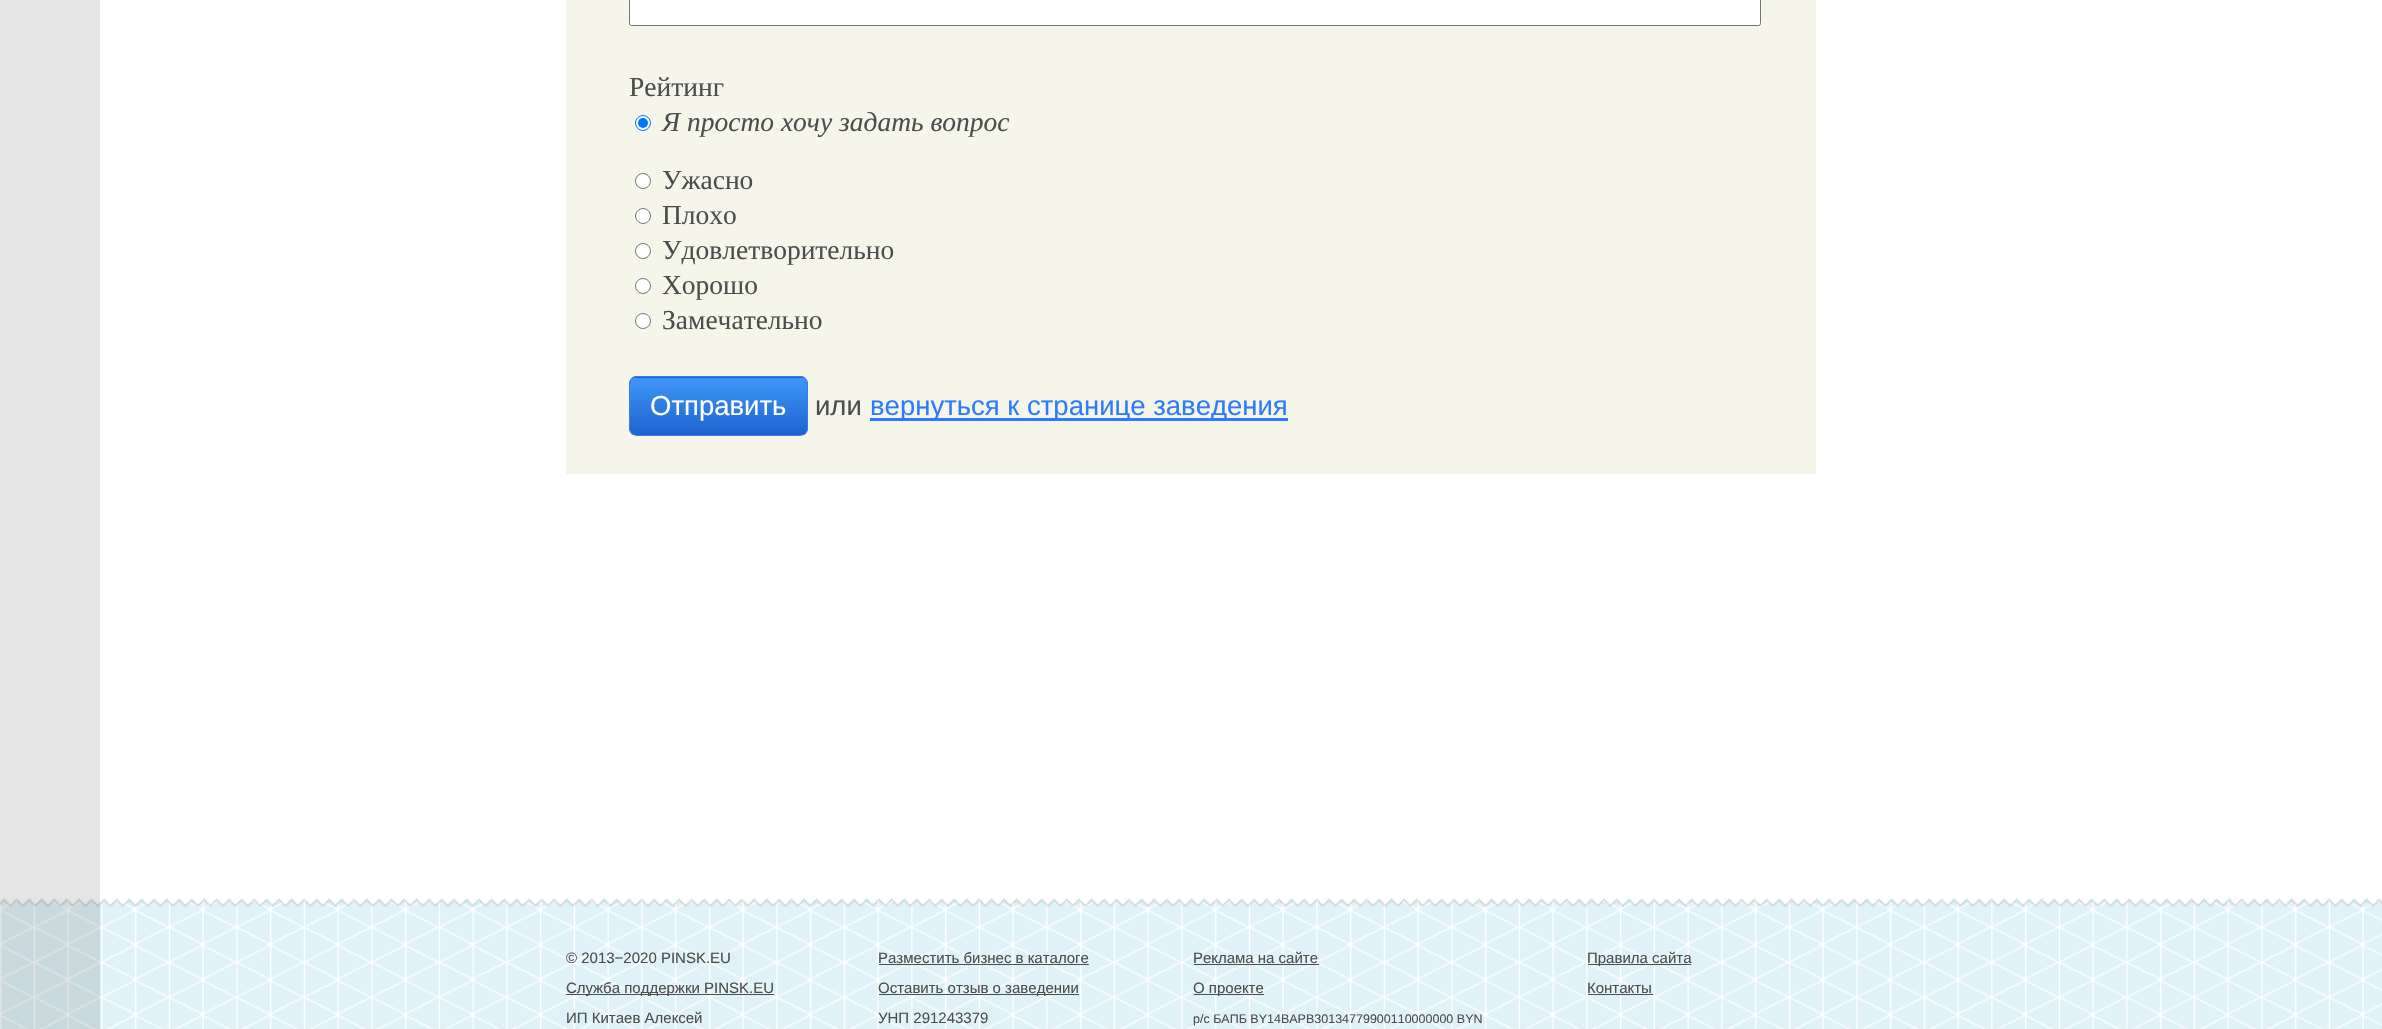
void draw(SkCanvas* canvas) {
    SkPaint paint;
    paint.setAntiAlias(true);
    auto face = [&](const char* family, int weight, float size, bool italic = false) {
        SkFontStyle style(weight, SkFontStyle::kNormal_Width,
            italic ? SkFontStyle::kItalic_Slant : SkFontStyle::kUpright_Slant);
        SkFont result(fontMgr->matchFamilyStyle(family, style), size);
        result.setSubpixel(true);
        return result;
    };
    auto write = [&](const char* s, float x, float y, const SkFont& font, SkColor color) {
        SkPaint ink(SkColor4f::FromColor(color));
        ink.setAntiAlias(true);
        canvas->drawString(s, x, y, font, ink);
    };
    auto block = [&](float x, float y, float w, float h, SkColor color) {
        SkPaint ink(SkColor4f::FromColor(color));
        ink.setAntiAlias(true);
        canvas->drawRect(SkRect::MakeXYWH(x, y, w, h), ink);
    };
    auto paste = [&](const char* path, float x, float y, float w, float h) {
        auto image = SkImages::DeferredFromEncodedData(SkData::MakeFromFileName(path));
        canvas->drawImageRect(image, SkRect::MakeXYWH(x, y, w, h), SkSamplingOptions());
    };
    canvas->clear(SK_ColorWHITE);
    paste("pic1.png", 0, 899, 2382, 130);
    paste("pic2.png", 0, 898, 2382, 9);
    block(0, 0, 100, 1029, SkColorSetARGB(26, 0, 0, 0));
    block(566, 0, 1250, 474, SkColorSetRGB(245, 245, 234));
    paint.setColor(SK_ColorWHITE);
    canvas->drawRoundRect(SkRect::MakeXYWH(629.5f, -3.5f, 1131, 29), 2, 2, paint);
    paint.setStyle(SkPaint::kStroke_Style);
    paint.setStrokeWidth(1);
    paint.setColor(SkColorSetRGB(118, 118, 118));
    canvas->drawRoundRect(SkRect::MakeXYWH(629.5f, -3.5f, 1131, 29), 2, 2, paint);
    auto kFont1 = face("Liberation Serif", 400, 27.5f);
    write("Рейтинг", 629, 96, kFont1, SkColorSetRGB(77, 77, 77));
    paint.setStyle(SkPaint::kFill_Style);
    paint.setColor(SK_ColorWHITE);
    canvas->drawCircle(643, 123, 7.5f, paint);
    paint.setStyle(SkPaint::kStroke_Style);
    paint.setColor(SkColorSetRGB(0, 117, 255));
    canvas->drawCircle(643, 123, 7.5f, paint);
    paint.setStyle(SkPaint::kFill_Style);
    canvas->drawCircle(643, 123, 5, paint);
    auto kFont2 = face("Liberation Serif", 400, 27.5f, true);
    write("Я просто хочу задать вопрос", 662, 131, kFont2, SkColorSetRGB(77, 77, 77));
    paint.setColor(SK_ColorWHITE);
    canvas->drawCircle(643, 181, 7.5f, paint);
    paint.setStyle(SkPaint::kStroke_Style);
    paint.setColor(SkColorSetRGB(118, 118, 118));
    canvas->drawCircle(643, 181, 7.5f, paint);
    write("Ужасно", 662, 189, kFont1, SkColorSetRGB(77, 77, 77));
    paint.setStyle(SkPaint::kFill_Style);
    paint.setColor(SK_ColorWHITE);
    canvas->drawCircle(643, 216, 7.5f, paint);
    paint.setStyle(SkPaint::kStroke_Style);
    paint.setColor(SkColorSetRGB(118, 118, 118));
    canvas->drawCircle(643, 216, 7.5f, paint);
    write("Плохо", 662, 224, kFont1, SkColorSetRGB(77, 77, 77));
    paint.setStyle(SkPaint::kFill_Style);
    paint.setColor(SK_ColorWHITE);
    canvas->drawCircle(643, 251, 7.5f, paint);
    paint.setStyle(SkPaint::kStroke_Style);
    paint.setColor(SkColorSetRGB(118, 118, 118));
    canvas->drawCircle(643, 251, 7.5f, paint);
    write("Удовлетворительно", 662, 259, kFont1, SkColorSetRGB(77, 77, 77));
    paint.setStyle(SkPaint::kFill_Style);
    paint.setColor(SK_ColorWHITE);
    canvas->drawCircle(643, 286, 7.5f, paint);
    paint.setStyle(SkPaint::kStroke_Style);
    paint.setColor(SkColorSetRGB(118, 118, 118));
    canvas->drawCircle(643, 286, 7.5f, paint);
    write("Хорошо", 662, 294, kFont1, SkColorSetRGB(77, 77, 77));
    paint.setStyle(SkPaint::kFill_Style);
    paint.setColor(SK_ColorWHITE);
    canvas->drawCircle(643, 321, 7.5f, paint);
    paint.setStyle(SkPaint::kStroke_Style);
    paint.setColor(SkColorSetRGB(118, 118, 118));
    canvas->drawCircle(643, 321, 7.5f, paint);
    write("Замечательно", 662, 329, kFont1, SkColorSetRGB(77, 77, 77));
    canvas->save();
    canvas->clipPath(SkPathBuilder().moveTo(637, 376).lineTo(800, 376).cubicTo(804.5f, 376, 808, 379.5f, 808, 384).lineTo(808, 428).cubicTo(808, 432.5f, 804.5f, 436, 800, 436).lineTo(637, 436).cubicTo(632.5f, 436, 629, 432.5f, 629, 428).lineTo(629, 384).cubicTo(629, 379.5f, 632.5f, 376, 637, 376).close().detach(), true);
    paint.setStyle(SkPaint::kFill_Style);
    {
        const SkColor colors[] = {SkColorSetRGB(61, 148, 246), SkColorSetRGB(30, 98, 208)};
        const float stops[] = {0.05f, 1};
        const SkPoint ends[] = {{718, 320}, {718, 378}};
        paint.setShader(SkGradientShader::MakeLinear(ends, colors, stops, 2, SkTileMode::kClamp));
        paint.setAlpha(255);
    }
    canvas->drawRect(SkRect::MakeXYWH(629, 376, 179, 2), paint);
    {
        const SkColor colors[] = {SkColorSetRGB(61, 148, 246), SkColorSetRGB(30, 98, 208)};
        const float stops[] = {0.05f, 1};
        const SkPoint ends[] = {{718, 378}, {718, 435}};
        paint.setShader(SkGradientShader::MakeLinear(ends, colors, stops, 2, SkTileMode::kClamp));
        paint.setAlpha(255);
    }
    canvas->drawRect(SkRect::MakeXYWH(629, 378, 179, 57), paint);
    canvas->restore();
    paint.setStyle(SkPaint::kStroke_Style);
    paint.setShader(nullptr);
    paint.setColor(SkColorSetRGB(51, 127, 237));
    canvas->drawRoundRect(SkRect::MakeXYWH(629.5f, 376.5f, 178, 59), 7.5f, 7.5f, paint);
    auto kFont3 = face("Liberation Sans", 400, 27.5f);
    write("Отправить", 650, 415, kFont3, SK_ColorWHITE);
    write("или", 815, 415, kFont3, SkColorSetRGB(77, 77, 77));
    block(870, 418, 418, 3, SkColorSetRGB(44, 123, 255));
    write("вернуться к странице заведения", 870, 415, kFont3, SkColorSetRGB(44, 123, 255));
    auto kFont4 = face("Liberation Sans", 400, 15);
    write("© 2013−2020 PINSK.EU", 566, 963, kFont4, SkColorSetRGB(77, 77, 77));
    block(566, 994, 208, 1, SkColorSetRGB(77, 77, 77));
    write("Служба поддержки PINSK.EU", 566, 993, kFont4, SkColorSetRGB(77, 77, 77));
    write("ИП Китаев Алексей", 566, 1023, kFont4, SkColorSetRGB(77, 77, 77));
    write("Разместить бизнес в каталоге", 878, 963, kFont4, SkColorSetRGB(77, 77, 77));
    block(879, 964, 210, 1, SkColorSetRGB(77, 77, 77));
    block(879, 994, 200, 1, SkColorSetRGB(77, 77, 77));
    write("Оставить отзыв о заведении", 878, 993, kFont4, SkColorSetRGB(77, 77, 77));
    write("УНП 291243379", 878, 1023, kFont4, SkColorSetRGB(77, 77, 77));
    write("Реклама на сайте", 1193, 963, kFont4, SkColorSetRGB(77, 77, 77));
    block(1194, 964, 125, 1, SkColorSetRGB(77, 77, 77));
    block(1194, 994, 70, 1, SkColorSetRGB(77, 77, 77));
    write("О проекте", 1193, 993, kFont4, SkColorSetRGB(77, 77, 77));
    auto kFont5 = face("Liberation Sans", 400, 12.5f);
    write("р/с БАПБ BY14BAPB30134779900110000000 BYN", 1193, 1023, kFont5, SkColorSetRGB(77, 77, 77));
    block(1588, 964, 103, 1, SkColorSetRGB(77, 77, 77));
    write("Правила сайта", 1587, 963, kFont4, SkColorSetRGB(77, 77, 77));
    write("Контакты", 1587, 993, kFont4, SkColorSetRGB(77, 77, 77));
    block(1588, 994, 65, 1, SkColorSetRGB(77, 77, 77));
}
